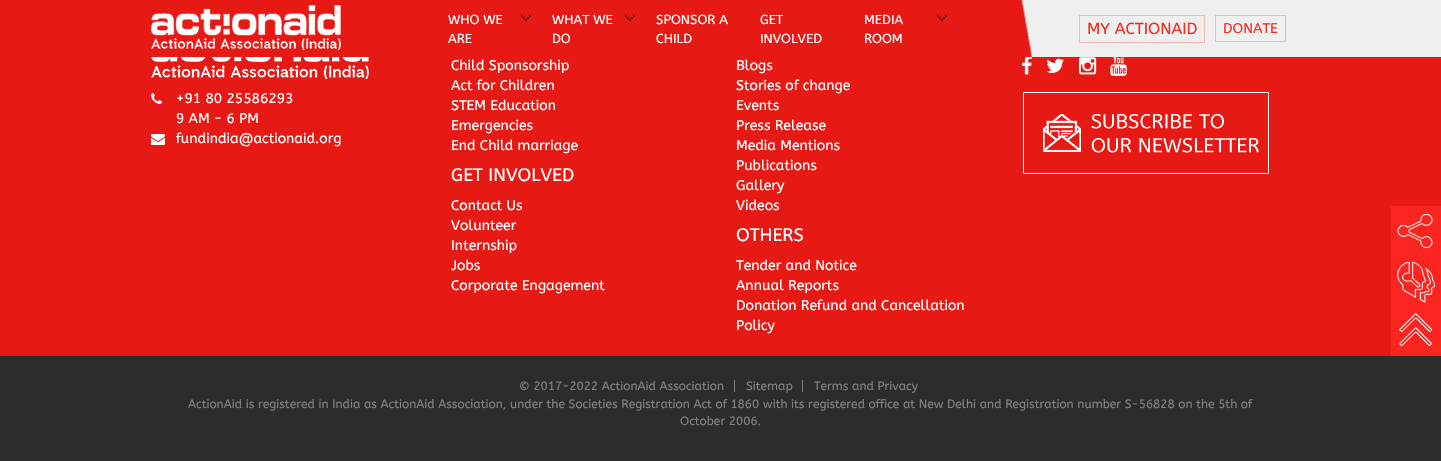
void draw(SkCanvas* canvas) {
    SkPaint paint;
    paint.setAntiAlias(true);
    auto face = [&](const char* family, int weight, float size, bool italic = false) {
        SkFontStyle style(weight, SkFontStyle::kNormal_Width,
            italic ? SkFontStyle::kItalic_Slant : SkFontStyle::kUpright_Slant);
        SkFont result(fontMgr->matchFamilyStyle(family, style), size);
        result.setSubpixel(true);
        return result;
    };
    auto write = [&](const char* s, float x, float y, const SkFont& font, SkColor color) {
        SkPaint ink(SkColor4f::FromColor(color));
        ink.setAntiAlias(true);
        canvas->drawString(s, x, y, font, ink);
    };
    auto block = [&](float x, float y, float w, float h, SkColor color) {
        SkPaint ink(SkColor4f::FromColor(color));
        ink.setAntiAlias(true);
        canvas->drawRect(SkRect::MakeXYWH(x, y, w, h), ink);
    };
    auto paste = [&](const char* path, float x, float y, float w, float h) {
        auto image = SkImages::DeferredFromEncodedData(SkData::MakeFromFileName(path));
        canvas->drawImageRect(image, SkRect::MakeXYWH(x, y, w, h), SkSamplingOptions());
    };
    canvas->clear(SkColorSetRGB(230, 25, 20));
    paste("pic1.png", 151, 0, 1290, 57);
    paste("pic2.png", 151, 5, 190, 45);
    auto kFont1 = face("ABeeZee", 400, 13);
    write("WHO WE", 448, 24, kFont1, SK_ColorWHITE);
    write("ARE", 448, 43, kFont1, SK_ColorWHITE);
    paste("pic3.png", 521, 15, 10, 6);
    write("WHAT WE", 552, 24, kFont1, SK_ColorWHITE);
    write("DO", 552, 43, kFont1, SK_ColorWHITE);
    paste("pic3.png", 625, 15, 10, 6);
    write("SPONSOR A", 656, 24, kFont1, SK_ColorWHITE);
    write("CHILD", 656, 43, kFont1, SK_ColorWHITE);
    write("GET", 760, 24, kFont1, SK_ColorWHITE);
    write("INVOLVED", 760, 43, kFont1, SK_ColorWHITE);
    write("MEDIA", 864, 24, kFont1, SK_ColorWHITE);
    write("ROOM", 864, 43, kFont1, SK_ColorWHITE);
    paste("pic3.png", 937, 15, 10, 6);
    paint.setStyle(SkPaint::kStroke_Style);
    paint.setStrokeWidth(1);
    paint.setColor(SkColorSetRGB(240, 182, 178));
    canvas->drawRect(SkRect::MakeXYWH(1079.5f, 15.5f, 125, 27), paint);
    auto kFont2 = face("ABeeZee", 400, 16);
    write("MY ACTIONAID", 1087, 34, kFont2, SkColorSetRGB(239, 45, 35));
    canvas->drawRect(SkRect::MakeXYWH(1215.5f, 15.5f, 70, 26), paint);
    auto kFont3 = face("ABeeZee", 400, 14);
    write("DONATE", 1223, 33, kFont3, SkColorSetRGB(239, 45, 35));
    block(1391, 206, 50, 150, SkColorSetRGB(251, 36, 31));
    paste("pic4.png", 1397, 214, 36, 34);
    paste("pic5.png", 1397, 262, 38, 41);
    paste("pic6.png", 1399, 313, 33, 33);
    paste("pic7.png", 151, 57, 218, 22);
    paste("pic8.png", 151, 93, 11, 11);
    write("+91 80 25586293", 176, 103, kFont3, SK_ColorWHITE);
    write("9 AM - 6 PM", 176, 123, kFont3, SK_ColorWHITE);
    paste("pic9.png", 151, 134, 14, 11);
    write("fundindia@actionaid.org", 176, 143, kFont3, SK_ColorWHITE);
    write("Child Sponsorship", 451, 70, kFont3, SK_ColorWHITE);
    write("Act for Children", 451, 90, kFont3, SK_ColorWHITE);
    write("STEM Education", 451, 110, kFont3, SK_ColorWHITE);
    write("Emergencies", 451, 130, kFont3, SK_ColorWHITE);
    write("End Child marriage", 451, 150, kFont3, SK_ColorWHITE);
    auto kFont4 = face("ABeeZee", 400, 18);
    write("GET INVOLVED", 451, 181, kFont4, SK_ColorWHITE);
    write("Contact Us", 451, 210, kFont3, SK_ColorWHITE);
    write("Volunteer", 451, 230, kFont3, SK_ColorWHITE);
    write("Internship", 451, 250, kFont3, SK_ColorWHITE);
    write("Jobs", 451, 270, kFont3, SK_ColorWHITE);
    write("Corporate Engagement", 451, 290, kFont3, SK_ColorWHITE);
    write("Blogs", 736, 70, kFont3, SK_ColorWHITE);
    write("Stories of change", 736, 90, kFont3, SK_ColorWHITE);
    write("Events", 736, 110, kFont3, SK_ColorWHITE);
    write("Press Release", 736, 130, kFont3, SK_ColorWHITE);
    write("Media Mentions", 736, 150, kFont3, SK_ColorWHITE);
    write("Publications", 736, 170, kFont3, SK_ColorWHITE);
    write("Gallery", 736, 190, kFont3, SK_ColorWHITE);
    write("Videos", 736, 210, kFont3, SK_ColorWHITE);
    write("OTHERS", 736, 241, kFont4, SK_ColorWHITE);
    write("Tender and Notice", 736, 270, kFont3, SK_ColorWHITE);
    write("Annual Reports", 736, 290, kFont3, SK_ColorWHITE);
    write("Donation Refund and Cancellation", 736, 310, kFont3, SK_ColorWHITE);
    write("Policy", 736, 330, kFont3, SK_ColorWHITE);
    paste("pic10.png", 1022, 57, 10, 18);
    paste("pic11.png", 1046, 58, 18, 15);
    paste("pic12.png", 1079, 57, 18, 18);
    paste("pic13.png", 1110, 57, 17, 19);
    paste("pic14.png", 1023, 92, 246, 82);
    block(0, 356, 1441, 105, SkColorSetRGB(44, 44, 44));
    block(734, 380, 1, 12, SkColorSetRGB(131, 131, 131));
    auto kFont5 = face("ABeeZee", 400, 12);
    write("© 2017-2022 ActionAid Association", 519, 390, kFont5, SkColorSetRGB(131, 131, 131));
    block(802, 380, 1, 12, SkColorSetRGB(131, 131, 131));
    write("Sitemap", 746, 390, kFont5, SkColorSetRGB(131, 131, 131));
    write("Terms and Privacy", 814, 390, kFont5, SkColorSetRGB(131, 131, 131));
    write("ActionAid is registered in India as ActionAid Association, under the Societies Registration Act of 1860 with its registered office at New Delhi and Registration number S-56828 on the 5th of", 188, 408, kFont5, SkColorSetRGB(131, 131, 131));
    write("October 2006.", 680, 425, kFont5, SkColorSetRGB(131, 131, 131));
}
